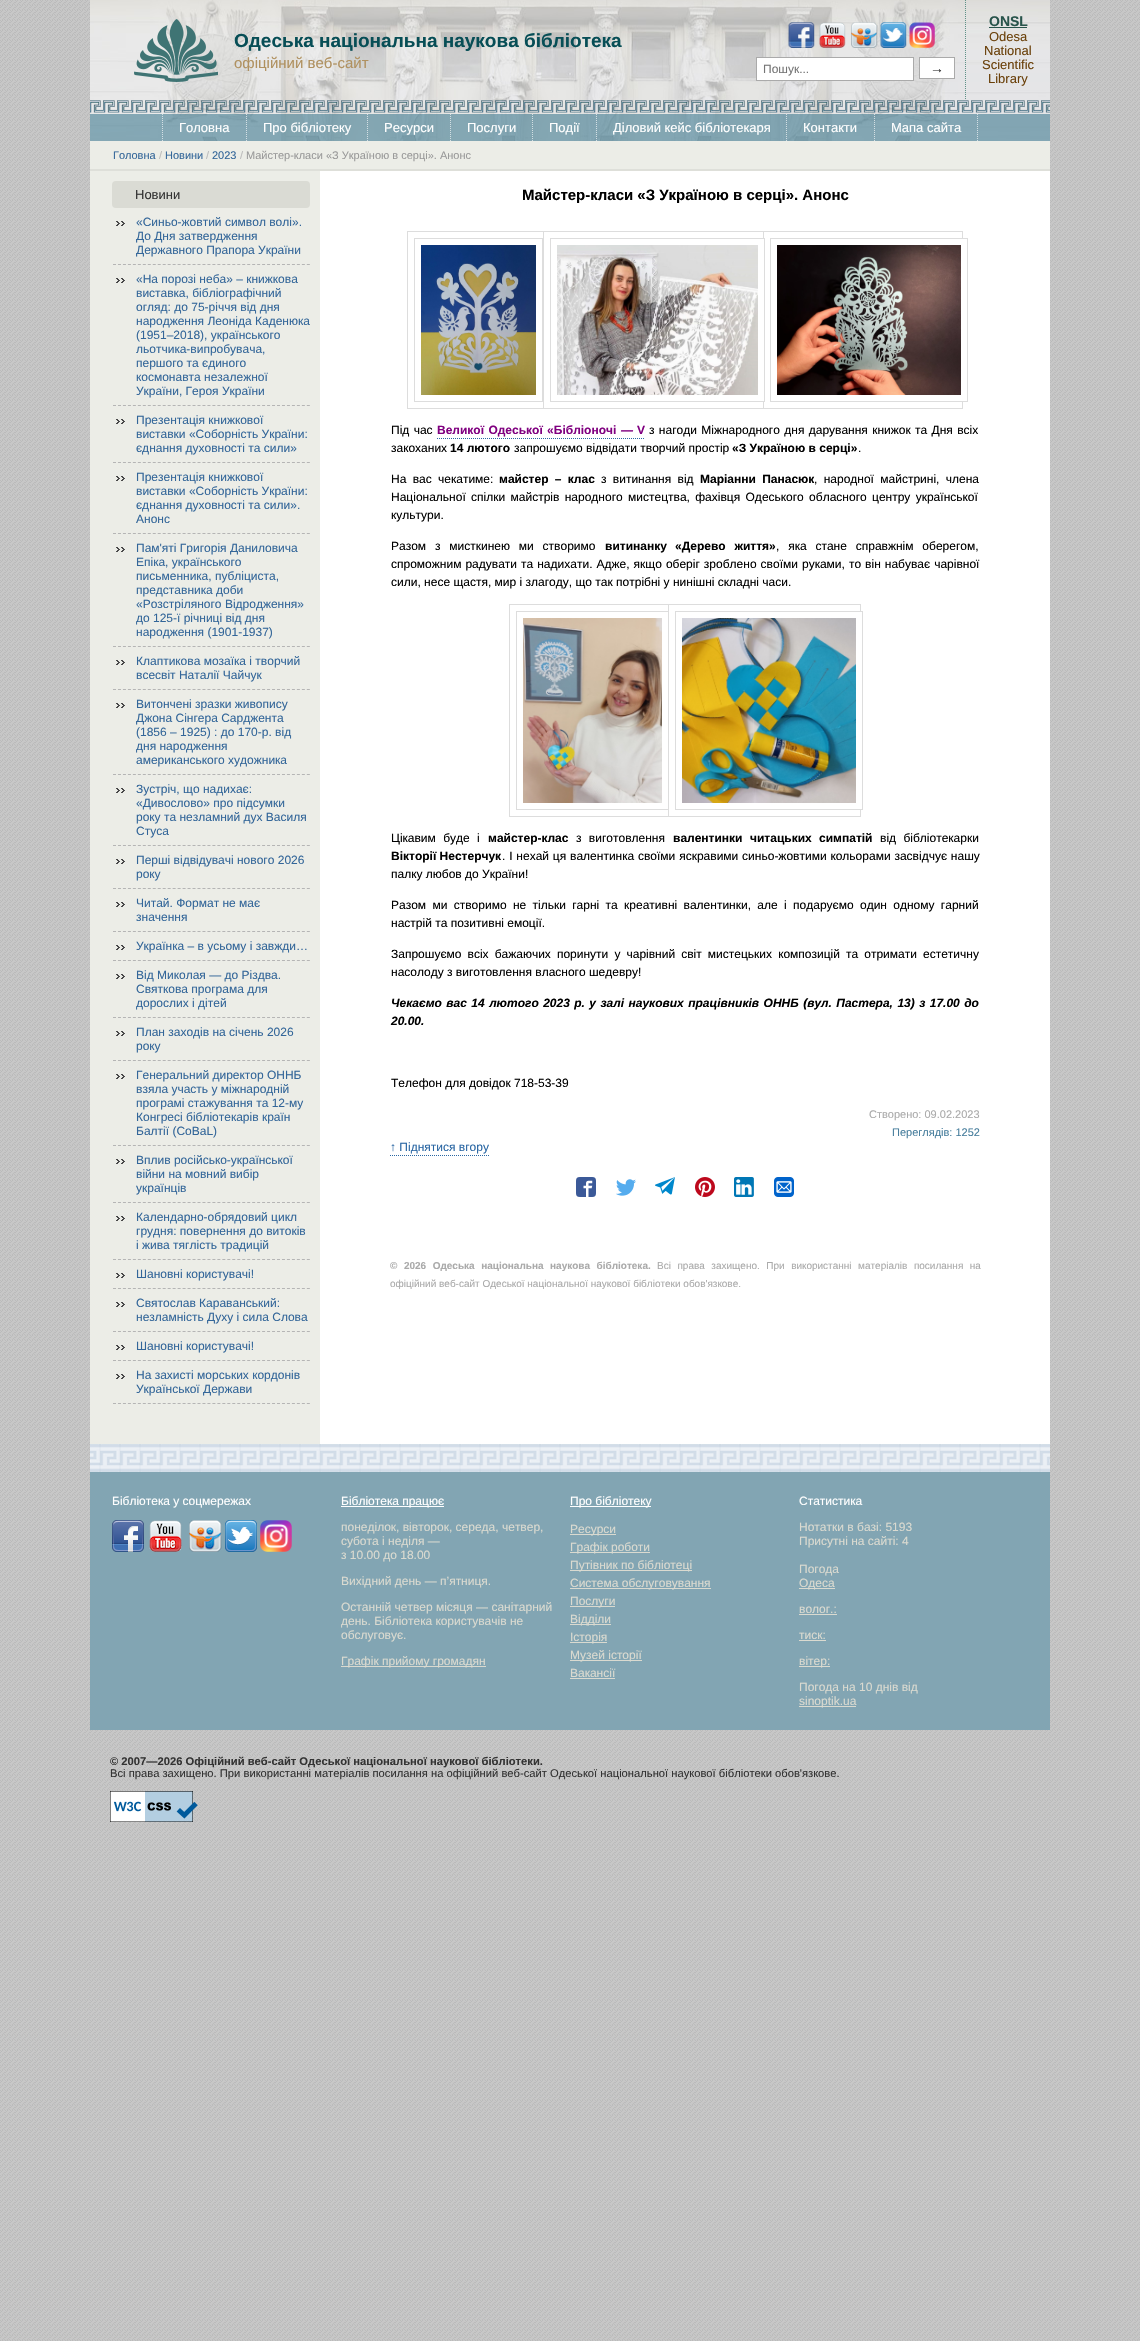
void draw(SkCanvas* canvas) {
    SkPaint paint;
    paint.setAntiAlias(true);
    auto face = [&](const char* family, int weight, float size, bool italic = false) {
        SkFontStyle style(weight, SkFontStyle::kNormal_Width,
            italic ? SkFontStyle::kItalic_Slant : SkFontStyle::kUpright_Slant);
        SkFont result(fontMgr->matchFamilyStyle(family, style), size);
        result.setSubpixel(true);
        return result;
    };
    auto write = [&](const char* s, float x, float y, const SkFont& font, SkColor color) {
        SkPaint ink(SkColor4f::FromColor(color));
        ink.setAntiAlias(true);
        canvas->drawString(s, x, y, font, ink);
    };
    auto writeSpaced = [&](const char* s, float x, float y, const SkFont& font, const SkPaint& ink, float letter, float word) {
        std::vector<SkGlyphID> glyphs(font.countText(s, strlen(s), SkTextEncoding::kUTF8));
        std::vector<float> xs(glyphs.size());
        font.textToGlyphs(s, strlen(s), SkTextEncoding::kUTF8, glyphs);
        font.getXPos(glyphs, xs, x);
        float extra = 0;
        for (size_t i = 0; i < glyphs.size(); i++) {
            xs[i] += extra;
            extra += letter + word * (glyphs[i] == font.unicharToGlyph(' '));
        }
        canvas->drawTextBlob(SkTextBlob::MakeFromPosHGlyphs(glyphs, xs, y, font), 0, 0, ink);
    };
    auto block = [&](float x, float y, float w, float h, SkColor color) {
        SkPaint ink(SkColor4f::FromColor(color));
        ink.setAntiAlias(true);
        canvas->drawRect(SkRect::MakeXYWH(x, y, w, h), ink);
    };
    auto card = [&](float x, float y, float w, float h, float radius, SkColor color) {
        SkPaint ink(SkColor4f::FromColor(color));
        ink.setAntiAlias(true);
        canvas->drawRoundRect(SkRect::MakeXYWH(x, y, w, h), radius, radius, ink);
    };
    auto paste = [&](const char* path, float x, float y, float w, float h) {
        auto image = SkImages::DeferredFromEncodedData(SkData::MakeFromFileName(path));
        canvas->drawImageRect(image, SkRect::MakeXYWH(x, y, w, h), SkSamplingOptions());
    };
    canvas->clear(SK_ColorWHITE);
    paste("pic1.png", 0, 0, 1140, 2341);
    paste("pic2.png", 90, 0, 960, 141);
    paste("pic3.png", 134, 19, 84, 63);
    auto kFont1 = face("Liberation Sans", 700, 19);
    write("Одеська національна наукова бібліотека", 234, 47, kFont1, SkColorSetRGB(7, 78, 86));
    auto kFont2 = face("Liberation Sans", 400, 15);
    write("офіційний веб-сайт", 234, 68, kFont2, SkColorSetRGB(176, 145, 96));
    paste("pic4.png", 788, 22, 27, 26);
    paste("pic5.png", 819, 22, 27, 26);
    paste("pic6.png", 851, 22, 27, 26);
    paste("pic7.png", 880, 22, 27, 26);
    paste("pic8.png", 909, 22, 26, 26);
    paint.setColor(SK_ColorWHITE);
    canvas->drawRect(SkRect::MakeXYWH(756.5f, 57.5f, 157, 23), paint);
    paint.setStyle(SkPaint::kStroke_Style);
    paint.setStrokeWidth(1);
    paint.setColor(SkColorSetRGB(170, 170, 170));
    canvas->drawRect(SkRect::MakeXYWH(756.5f, 57.5f, 157, 23), paint);
    auto kFont3 = face("Liberation Sans", 400, 12);
    write("Пошук...", 763, 73, kFont3, SkColorSetRGB(117, 117, 117));
    paint.setStyle(SkPaint::kFill_Style);
    paint.setColor(SK_ColorWHITE);
    canvas->drawRect(SkRect::MakeXYWH(919.5f, 57.5f, 35, 21), paint);
    paint.setStyle(SkPaint::kStroke_Style);
    paint.setColor(SkColorSetRGB(170, 170, 170));
    canvas->drawRect(SkRect::MakeXYWH(919.5f, 57.5f, 35, 21), paint);
    auto kFont4 = face("Liberation Sans", 400, 14);
    write("→", 930, 73, kFont4, SkColorSetRGB(51, 51, 51));
    paint.setColor(SkColorSetRGB(94, 145, 135));
    paint.setPathEffect(SkDashPathEffect::Make({{1, 1}}, 0));
    canvas->drawPath(SkPathBuilder().moveTo(965.5f, 0).lineTo(965.5f, 100).detach(), paint);
    paint.setPathEffect(nullptr);
    auto kFont5 = face("Liberation Sans", 700, 14);
    write("ONSL", 989, 26, kFont5, SkColorSetRGB(40, 84, 75));
    block(989, 27, 38, 1, SkColorSetRGB(40, 84, 75));
    auto kFont6 = face("Liberation Sans", 400, 13);
    write("Odesa", 989, 41, kFont6, SkColorSetRGB(106, 64, 9));
    write("National", 984, 55, kFont6, SkColorSetRGB(106, 64, 9));
    write("Scientific", 982, 69, kFont6, SkColorSetRGB(106, 64, 9));
    write("Library", 988, 83, kFont6, SkColorSetRGB(106, 64, 9));
    paste("pic9.png", 90, 100, 960, 13);
    block(90, 114, 960, 27, SkColorSetARGB(140, 49, 113, 137));
    paint.setColor(SkColorSetARGB(166, 255, 255, 255));
    paint.setPathEffect(SkDashPathEffect::Make({{1, 1}}, 0));
    canvas->drawPath(SkPathBuilder().moveTo(246.5f, 114).lineTo(246.5f, 141).detach(), paint);
    paint.setPathEffect(nullptr);
    paint.setColor(SkColorSetRGB(212, 224, 229));
    paint.setPathEffect(SkDashPathEffect::Make({{1, 1}}, 0));
    canvas->drawPath(SkPathBuilder().moveTo(162.5f, 114).lineTo(162.5f, 141).detach(), paint);
    paint.setPathEffect(nullptr);
    write("Головна", 179, 132, kFont6, SK_ColorWHITE);
    paint.setColor(SkColorSetRGB(212, 224, 228));
    paint.setPathEffect(SkDashPathEffect::Make({{1, 1}}, 0));
    canvas->drawPath(SkPathBuilder().moveTo(367.5f, 114).lineTo(367.5f, 141).detach(), paint);
    paint.setPathEffect(nullptr);
    write("Про бібліотеку", 263, 132, kFont6, SK_ColorWHITE);
    paint.setPathEffect(SkDashPathEffect::Make({{1, 1}}, 0));
    canvas->drawPath(SkPathBuilder().moveTo(450.5f, 114).lineTo(450.5f, 141).detach(), paint);
    paint.setPathEffect(nullptr);
    write("Ресурси", 384, 132, kFont6, SK_ColorWHITE);
    paint.setColor(SkColorSetRGB(210, 223, 227));
    paint.setPathEffect(SkDashPathEffect::Make({{1, 1}}, 0));
    canvas->drawPath(SkPathBuilder().moveTo(532.5f, 114).lineTo(532.5f, 141).detach(), paint);
    paint.setPathEffect(nullptr);
    write("Послуги", 467, 132, kFont6, SK_ColorWHITE);
    paint.setColor(SkColorSetARGB(166, 255, 255, 255));
    paint.setPathEffect(SkDashPathEffect::Make({{1, 1}}, 0));
    canvas->drawPath(SkPathBuilder().moveTo(596.5f, 114).lineTo(596.5f, 141).detach(), paint);
    paint.setPathEffect(nullptr);
    write("Події", 549, 132, kFont6, SK_ColorWHITE);
    paint.setPathEffect(SkDashPathEffect::Make({{1, 1}}, 0));
    canvas->drawPath(SkPathBuilder().moveTo(786.5f, 114).lineTo(786.5f, 141).detach(), paint);
    paint.setPathEffect(nullptr);
    write("Діловий кейс бібліотекаря", 613, 132, kFont6, SK_ColorWHITE);
    paint.setPathEffect(SkDashPathEffect::Make({{1, 1}}, 0));
    canvas->drawPath(SkPathBuilder().moveTo(874.5f, 114).lineTo(874.5f, 141).detach(), paint);
    paint.setPathEffect(nullptr);
    write("Контакти", 803, 132, kFont6, SK_ColorWHITE);
    paint.setColor(SkColorSetRGB(211, 224, 229));
    paint.setPathEffect(SkDashPathEffect::Make({{1, 1}}, 0));
    canvas->drawPath(SkPathBuilder().moveTo(977.5f, 114).lineTo(977.5f, 141).detach(), paint);
    paint.setPathEffect(nullptr);
    write("Мапа сайта", 891, 132, kFont6, SK_ColorWHITE);
    block(90, 141, 960, 28, SkColorSetRGB(236, 237, 231));
    block(90, 169, 960, 2, SkColorSetRGB(222, 223, 217));
    auto kFont7 = face("Liberation Sans", 400, 11);
    write("Головна", 113, 159, kFont7, SkColorSetRGB(51, 102, 153));
    write("/", 159, 159, kFont7, SkColorSetRGB(187, 187, 187));
    write("Новини", 165, 159, kFont7, SkColorSetRGB(51, 102, 153));
    write("/", 206, 159, kFont7, SkColorSetRGB(187, 187, 187));
    write("2023", 212, 159, kFont7, SkColorSetRGB(51, 102, 153));
    write("/", 240, 159, kFont7, SkColorSetRGB(187, 187, 187));
    write("Майстер-класи «З Україною в серці». Анонс", 246, 159, kFont7, SkColorSetRGB(153, 153, 153));
    block(320, 171, 730, 1273, SK_ColorWHITE);
    block(90, 171, 230, 1273, SkColorSetRGB(236, 237, 231));
    auto kFont8 = face("Liberation Sans", 700, 15);
    write("Майстер-класи «З Україною в серці». Анонс", 522, 200, kFont8, SK_ColorBLACK);
    block(407, 231, 556, 1, SkColorSetRGB(221, 221, 221));
    block(962, 231, 1, 178, SkColorSetRGB(221, 221, 221));
    block(407, 408, 556, 1, SkColorSetRGB(221, 221, 221));
    block(407, 231, 1, 178, SkColorSetRGB(221, 221, 221));
    paint.setColor(SkColorSetRGB(221, 221, 221));
    canvas->drawRect(SkRect::MakeXYWH(414.5f, 238.5f, 128, 163), paint);
    paste("pic10.png", 421, 245, 115, 150);
    block(543, 231, 1, 178, SkColorSetRGB(221, 221, 221));
    block(763, 231, 1, 178, SkColorSetRGB(221, 221, 221));
    block(763, 239, 1, 162, SK_ColorWHITE);
    canvas->drawRect(SkRect::MakeXYWH(550.5f, 238.5f, 214, 163), paint);
    paste("pic11.png", 557, 245, 201, 150);
    block(962, 239, 1, 162, SK_ColorWHITE);
    canvas->drawRect(SkRect::MakeXYWH(770.5f, 238.5f, 197, 163), paint);
    paste("pic12.png", 777, 245, 184, 150);
    paint.setStyle(SkPaint::kFill_Style);
    paint.setColor(SK_ColorBLACK);
    writeSpaced("Під час", 391, 434, kFont3, paint, 0, 1);
    auto kFont9 = face("Liberation Sans", 700, 12);
    paint.setColor(SkColorSetRGB(128, 0, 128));
    writeSpaced("Великої Одеської «Бібліоночі", 437, 434, kFont9, paint, 0, 1);
    paint.setStyle(SkPaint::kStroke_Style);
    paint.setColor(SkColorSetRGB(41, 102, 163));
    paint.setPathEffect(SkDashPathEffect::Make({{1, 1}}, 0));
    canvas->drawPath(SkPathBuilder().moveTo(437, 438.5f).lineTo(621, 438.5f).detach(), paint);
    paint.setPathEffect(nullptr);
    auto kFont10 = face("Liberation Sans", 700, 12, true);
    write("—", 621, 434, kFont10, SkColorSetRGB(128, 0, 128));
    paint.setPathEffect(SkDashPathEffect::Make({{1, 1}}, 0));
    canvas->drawPath(SkPathBuilder().moveTo(621, 438.5f).lineTo(637, 438.5f).moveTo(637, 438.5f).lineTo(645, 438.5f).detach(), paint);
    paint.setPathEffect(nullptr);
    write("V", 637, 434, kFont9, SkColorSetRGB(128, 0, 128));
    paint.setStyle(SkPaint::kFill_Style);
    paint.setColor(SK_ColorBLACK);
    writeSpaced("з нагоди Міжнародного дня дарування книжок та Дня всіх", 649, 434, kFont3, paint, 0, 1);
    write("закоханих", 391, 452, kFont3, SK_ColorBLACK);
    write("14 лютого", 450, 452, kFont9, SK_ColorBLACK);
    write("запрошуємо відвідати творчий простір", 514, 452, kFont3, SK_ColorBLACK);
    write("«З Україною в серці»", 732, 452, kFont9, SK_ColorBLACK);
    write(".", 858, 452, kFont3, SK_ColorBLACK);
    writeSpaced("На вас чекатиме:", 391, 483, kFont3, paint, 0, 3);
    writeSpaced("майстер – клас", 499, 483, kFont9, paint, 0, 3);
    writeSpaced("з витинання від", 601, 483, kFont3, paint, 0, 3);
    writeSpaced("Маріанни Панасюк", 700, 483, kFont9, paint, 0, 3);
    writeSpaced(", народної майстрині, члена", 814, 483, kFont3, paint, 0, 3);
    writeSpaced("Національної спілки майстрів народного мистецтва, фахівця Одеського обласного центру української", 391, 501, kFont3, paint, 0, 2);
    write("культури.", 391, 519, kFont3, SK_ColorBLACK);
    writeSpaced("Разом з мисткинею ми створимо", 391, 550, kFont3, paint, 0, 5.5f);
    write("витинанку", 605, 550, kFont9, SK_ColorBLACK);
    writeSpaced("«Дерево життя»", 675, 550, kFont9, paint, 0, 5.5f);
    writeSpaced(", яка стане справжнім оберегом,", 776, 550, kFont3, paint, 0, 5.5f);
    writeSpaced("спроможним радувати та надихати. Адже, якщо оберіг зроблено своїми руками, то він набуває чарівної", 391, 568, kFont3, paint, 0, 0.7f);
    write("сили, несе щастя, мир і злагоду, що так потрібні у нинішні складні часи.", 391, 586, kFont3, SK_ColorBLACK);
    block(509, 604, 352, 1, SkColorSetRGB(221, 221, 221));
    block(860, 604, 1, 213, SkColorSetRGB(221, 221, 221));
    block(509, 816, 352, 1, SkColorSetRGB(221, 221, 221));
    block(509, 604, 1, 213, SkColorSetRGB(221, 221, 221));
    block(668, 604, 1, 213, SkColorSetRGB(221, 221, 221));
    paint.setStyle(SkPaint::kStroke_Style);
    paint.setColor(SkColorSetRGB(221, 221, 221));
    canvas->drawRect(SkRect::MakeXYWH(516.5f, 611.5f, 152, 198), paint);
    paste("pic13.png", 523, 618, 139, 185);
    block(860, 612, 1, 197, SK_ColorWHITE);
    canvas->drawRect(SkRect::MakeXYWH(675.5f, 611.5f, 187, 198), paint);
    paste("pic14.png", 682, 618, 174, 185);
    paint.setStyle(SkPaint::kFill_Style);
    paint.setColor(SK_ColorBLACK);
    writeSpaced("Цікавим буде і", 391, 842, kFont3, paint, 0, 4);
    write("майстер-клас", 488, 842, kFont9, SK_ColorBLACK);
    writeSpaced("з виготовлення", 576, 842, kFont3, paint, 0, 4);
    write("валентинки", 673, 842, kFont9, SK_ColorBLACK);
    writeSpaced("читацьких симпатій", 750, 842, kFont9, paint, 0, 4);
    writeSpaced("від бібліотекарки", 880, 842, kFont3, paint, 0, 4);
    write("Вікторії Нестерчук", 391, 860, kFont9, SK_ColorBLACK);
    writeSpaced(". І нехай ця валентинка своїми яскравими синьо-жовтими кольорами засвідчує нашу", 502, 860, kFont3, paint, 0, 0.5f);
    write("палку любов до України!", 391, 878, kFont3, SK_ColorBLACK);
    writeSpaced("Разом ми створимо не тільки гарні та креативні валентинки, але і подаруємо один одному гарний", 391, 909, kFont3, paint, 0, 3);
    write("настрій та позитивні емоції.", 391, 927, kFont3, SK_ColorBLACK);
    writeSpaced("Запрошуємо всіх бажаючих поринути у чарівний світ мистецьких композицій та отримати естетичну", 391, 958, kFont3, paint, 0, 2.75f);
    write("насолоду з виготовлення власного шедевру!", 391, 976, kFont3, SK_ColorBLACK);
    writeSpaced("Чекаємо вас 14 лютого 2023 р. у залі наукових працівників ОННБ (вул. Пастера, 13) з 17.00 до", 391, 1007, kFont10, paint, 0, 1.1f);
    write("20.00.", 391, 1025, kFont10, SK_ColorBLACK);
    write("Телефон для довідок 718-53-39", 391, 1087, kFont3, SK_ColorBLACK);
    write("Створено: 09.02.2023", 869, 1118, kFont7, SkColorSetRGB(170, 170, 170));
    write("Переглядів: 1252", 892, 1136, kFont7, SkColorSetRGB(70, 125, 156));
    write("↑ Піднятися вгору", 390, 1151, kFont3, SkColorSetRGB(41, 102, 163));
    paint.setStyle(SkPaint::kStroke_Style);
    paint.setColor(SkColorSetRGB(41, 102, 163));
    paint.setPathEffect(SkDashPathEffect::Make({{1, 1}}, 0));
    canvas->drawPath(SkPathBuilder().moveTo(390, 1155.5f).lineTo(489, 1155.5f).detach(), paint);
    paint.setPathEffect(nullptr);
    paste("pic15.png", 576, 1177, 20, 20);
    paste("pic16.png", 616, 1179, 20, 17);
    paste("pic17.png", 655, 1177, 20, 18);
    paste("pic18.png", 695, 1177, 20, 20);
    paste("pic19.png", 734, 1177, 20, 20);
    paste("pic20.png", 774, 1177, 20, 20);
    auto kFont11 = face("Liberation Sans", 700, 10);
    paint.setStyle(SkPaint::kFill_Style);
    paint.setColor(SkColorSetRGB(170, 170, 170));
    writeSpaced("© 2026 Одеська національна наукова бібліотека.", 390, 1269, kFont11, paint, 0, 3.75f);
    auto kFont12 = face("Liberation Sans", 400, 10);
    writeSpaced("Всі права захищено. При використанні матеріалів посилання на", 657, 1269, kFont12, paint, 0, 3.75f);
    write("офіційний веб-сайт Одеської національної наукової бібліотеки обов'язкове.", 390, 1287, kFont12, SkColorSetRGB(170, 170, 170));
    card(112, 181, 198, 27, 4, SkColorSetRGB(218, 219, 212));
    write("Новини", 135, 199, kFont6, SkColorSetRGB(51, 51, 51));
    paste("pic21.png", 116, 221, 9, 5);
    paint.setStyle(SkPaint::kStroke_Style);
    paint.setColor(SkColorSetRGB(181, 181, 181));
    paint.setPathEffect(SkDashPathEffect::Make({{3, 1.97f}}, 0));
    canvas->drawPath(SkPathBuilder().moveTo(113, 264.5f).lineTo(310, 264.5f).detach(), paint);
    paint.setPathEffect(nullptr);
    write("«Синьо-жовтий символ волі».", 136, 226, kFont3, SkColorSetRGB(51, 102, 153));
    write("До Дня затвердження", 136, 240, kFont3, SkColorSetRGB(51, 102, 153));
    write("Державного Прапора України", 136, 254, kFont3, SkColorSetRGB(51, 102, 153));
    paste("pic21.png", 116, 278, 9, 5);
    paint.setPathEffect(SkDashPathEffect::Make({{3, 1.97f}}, 0));
    canvas->drawPath(SkPathBuilder().moveTo(113, 405.5f).lineTo(310, 405.5f).detach(), paint);
    paint.setPathEffect(nullptr);
    write("«На порозі неба» – книжкова", 136, 283, kFont3, SkColorSetRGB(51, 102, 153));
    write("виставка, бібліографічний", 136, 297, kFont3, SkColorSetRGB(51, 102, 153));
    write("огляд: до 75-річчя від дня", 136, 311, kFont3, SkColorSetRGB(51, 102, 153));
    write("народження Леоніда Каденюка", 136, 325, kFont3, SkColorSetRGB(51, 102, 153));
    write("(1951–2018), українського", 136, 339, kFont3, SkColorSetRGB(51, 102, 153));
    write("льотчика-випробувача,", 136, 353, kFont3, SkColorSetRGB(51, 102, 153));
    write("першого та єдиного", 136, 367, kFont3, SkColorSetRGB(51, 102, 153));
    write("космонавта незалежної", 136, 381, kFont3, SkColorSetRGB(51, 102, 153));
    write("України, Героя України", 136, 395, kFont3, SkColorSetRGB(51, 102, 153));
    paste("pic21.png", 116, 419, 9, 5);
    paint.setPathEffect(SkDashPathEffect::Make({{3, 1.97f}}, 0));
    canvas->drawPath(SkPathBuilder().moveTo(113, 462.5f).lineTo(310, 462.5f).detach(), paint);
    paint.setPathEffect(nullptr);
    write("Презентація книжкової", 136, 424, kFont3, SkColorSetRGB(51, 102, 153));
    write("виставки «Соборність України:", 136, 438, kFont3, SkColorSetRGB(51, 102, 153));
    write("єднання духовності та сили»", 136, 452, kFont3, SkColorSetRGB(51, 102, 153));
    paste("pic21.png", 116, 476, 9, 5);
    paint.setPathEffect(SkDashPathEffect::Make({{3, 1.97f}}, 0));
    canvas->drawPath(SkPathBuilder().moveTo(113, 533.5f).lineTo(310, 533.5f).detach(), paint);
    paint.setPathEffect(nullptr);
    write("Презентація книжкової", 136, 481, kFont3, SkColorSetRGB(51, 102, 153));
    write("виставки «Соборність України:", 136, 495, kFont3, SkColorSetRGB(51, 102, 153));
    write("єднання духовності та сили».", 136, 509, kFont3, SkColorSetRGB(51, 102, 153));
    write("Анонс", 136, 523, kFont3, SkColorSetRGB(51, 102, 153));
    paste("pic21.png", 116, 547, 9, 5);
    paint.setPathEffect(SkDashPathEffect::Make({{3, 1.97f}}, 0));
    canvas->drawPath(SkPathBuilder().moveTo(113, 646.5f).lineTo(310, 646.5f).detach(), paint);
    paint.setPathEffect(nullptr);
    write("Пам'яті Григорія Даниловича", 136, 552, kFont3, SkColorSetRGB(51, 102, 153));
    write("Епіка, українського", 136, 566, kFont3, SkColorSetRGB(51, 102, 153));
    write("письменника, публіциста,", 136, 580, kFont3, SkColorSetRGB(51, 102, 153));
    write("представника доби", 136, 594, kFont3, SkColorSetRGB(51, 102, 153));
    write("«Розстріляного Відродження»", 136, 608, kFont3, SkColorSetRGB(51, 102, 153));
    write("до 125-ї річниці від дня", 136, 622, kFont3, SkColorSetRGB(51, 102, 153));
    write("народження (1901-1937)", 136, 636, kFont3, SkColorSetRGB(51, 102, 153));
    paste("pic21.png", 116, 660, 9, 5);
    paint.setPathEffect(SkDashPathEffect::Make({{3, 1.97f}}, 0));
    canvas->drawPath(SkPathBuilder().moveTo(113, 689.5f).lineTo(310, 689.5f).detach(), paint);
    paint.setPathEffect(nullptr);
    write("Клаптикова мозаїка і творчий", 136, 665, kFont3, SkColorSetRGB(51, 102, 153));
    write("всесвіт Наталії Чайчук", 136, 679, kFont3, SkColorSetRGB(51, 102, 153));
    paste("pic21.png", 116, 703, 9, 5);
    paint.setPathEffect(SkDashPathEffect::Make({{3, 1.97f}}, 0));
    canvas->drawPath(SkPathBuilder().moveTo(113, 774.5f).lineTo(310, 774.5f).detach(), paint);
    paint.setPathEffect(nullptr);
    write("Витончені зразки живопису", 136, 708, kFont3, SkColorSetRGB(51, 102, 153));
    write("Джона Сінгера Сарджента", 136, 722, kFont3, SkColorSetRGB(51, 102, 153));
    write("(1856 – 1925) : до 170-р. від", 136, 736, kFont3, SkColorSetRGB(51, 102, 153));
    write("дня народження", 136, 750, kFont3, SkColorSetRGB(51, 102, 153));
    write("американського художника", 136, 764, kFont3, SkColorSetRGB(51, 102, 153));
    paste("pic21.png", 116, 788, 9, 5);
    paint.setPathEffect(SkDashPathEffect::Make({{3, 1.97f}}, 0));
    canvas->drawPath(SkPathBuilder().moveTo(113, 845.5f).lineTo(310, 845.5f).detach(), paint);
    paint.setPathEffect(nullptr);
    write("Зустріч, що надихає:", 136, 793, kFont3, SkColorSetRGB(51, 102, 153));
    write("«Дивослово» про підсумки", 136, 807, kFont3, SkColorSetRGB(51, 102, 153));
    write("року та незламний дух Василя", 136, 821, kFont3, SkColorSetRGB(51, 102, 153));
    write("Стуса", 136, 835, kFont3, SkColorSetRGB(51, 102, 153));
    paste("pic21.png", 116, 859, 9, 5);
    paint.setPathEffect(SkDashPathEffect::Make({{3, 1.97f}}, 0));
    canvas->drawPath(SkPathBuilder().moveTo(113, 888.5f).lineTo(310, 888.5f).detach(), paint);
    paint.setPathEffect(nullptr);
    write("Перші відвідувачі нового 2026", 136, 864, kFont3, SkColorSetRGB(51, 102, 153));
    write("року", 136, 878, kFont3, SkColorSetRGB(51, 102, 153));
    paste("pic21.png", 116, 902, 9, 5);
    paint.setPathEffect(SkDashPathEffect::Make({{3, 1.97f}}, 0));
    canvas->drawPath(SkPathBuilder().moveTo(113, 931.5f).lineTo(310, 931.5f).detach(), paint);
    paint.setPathEffect(nullptr);
    write("Читай. Формат не має", 136, 907, kFont3, SkColorSetRGB(51, 102, 153));
    write("значення", 136, 921, kFont3, SkColorSetRGB(51, 102, 153));
    paste("pic21.png", 116, 945, 9, 5);
    paint.setPathEffect(SkDashPathEffect::Make({{3, 1.97f}}, 0));
    canvas->drawPath(SkPathBuilder().moveTo(113, 960.5f).lineTo(310, 960.5f).detach(), paint);
    paint.setPathEffect(nullptr);
    write("Українка – в усьому і завжди…", 136, 950, kFont3, SkColorSetRGB(51, 102, 153));
    paste("pic21.png", 116, 974, 9, 5);
    paint.setPathEffect(SkDashPathEffect::Make({{3, 1.97f}}, 0));
    canvas->drawPath(SkPathBuilder().moveTo(113, 1017.5f).lineTo(310, 1017.5f).detach(), paint);
    paint.setPathEffect(nullptr);
    write("Від Миколая — до Різдва.", 136, 979, kFont3, SkColorSetRGB(51, 102, 153));
    write("Святкова програма для", 136, 993, kFont3, SkColorSetRGB(51, 102, 153));
    write("дорослих і дітей", 136, 1007, kFont3, SkColorSetRGB(51, 102, 153));
    paste("pic21.png", 116, 1031, 9, 5);
    paint.setPathEffect(SkDashPathEffect::Make({{3, 1.97f}}, 0));
    canvas->drawPath(SkPathBuilder().moveTo(113, 1060.5f).lineTo(310, 1060.5f).detach(), paint);
    paint.setPathEffect(nullptr);
    write("План заходів на січень 2026", 136, 1036, kFont3, SkColorSetRGB(51, 102, 153));
    write("року", 136, 1050, kFont3, SkColorSetRGB(51, 102, 153));
    paste("pic21.png", 116, 1074, 9, 5);
    paint.setPathEffect(SkDashPathEffect::Make({{3, 1.97f}}, 0));
    canvas->drawPath(SkPathBuilder().moveTo(113, 1145.5f).lineTo(310, 1145.5f).detach(), paint);
    paint.setPathEffect(nullptr);
    write("Генеральний директор ОННБ", 136, 1079, kFont3, SkColorSetRGB(51, 102, 153));
    write("взяла участь у міжнародній", 136, 1093, kFont3, SkColorSetRGB(51, 102, 153));
    write("програмі стажування та 12-му", 136, 1107, kFont3, SkColorSetRGB(51, 102, 153));
    write("Конгресі бібліотекарів країн", 136, 1121, kFont3, SkColorSetRGB(51, 102, 153));
    write("Балтії (CoBaL)", 136, 1135, kFont3, SkColorSetRGB(51, 102, 153));
    paste("pic21.png", 116, 1159, 9, 5);
    paint.setPathEffect(SkDashPathEffect::Make({{3, 1.97f}}, 0));
    canvas->drawPath(SkPathBuilder().moveTo(113, 1202.5f).lineTo(310, 1202.5f).detach(), paint);
    paint.setPathEffect(nullptr);
    write("Вплив російсько-української", 136, 1164, kFont3, SkColorSetRGB(51, 102, 153));
    write("війни на мовний вибір", 136, 1178, kFont3, SkColorSetRGB(51, 102, 153));
    write("українців", 136, 1192, kFont3, SkColorSetRGB(51, 102, 153));
    paste("pic21.png", 116, 1216, 9, 5);
    paint.setPathEffect(SkDashPathEffect::Make({{3, 1.97f}}, 0));
    canvas->drawPath(SkPathBuilder().moveTo(113, 1259.5f).lineTo(310, 1259.5f).detach(), paint);
    paint.setPathEffect(nullptr);
    write("Календарно-обрядовий цикл", 136, 1221, kFont3, SkColorSetRGB(51, 102, 153));
    write("грудня: повернення до витоків", 136, 1235, kFont3, SkColorSetRGB(51, 102, 153));
    write("і жива тяглість традицій", 136, 1249, kFont3, SkColorSetRGB(51, 102, 153));
    paste("pic21.png", 116, 1273, 9, 5);
    paint.setPathEffect(SkDashPathEffect::Make({{3, 1.97f}}, 0));
    canvas->drawPath(SkPathBuilder().moveTo(113, 1288.5f).lineTo(310, 1288.5f).detach(), paint);
    paint.setPathEffect(nullptr);
    write("Шановні користувачі!", 136, 1278, kFont3, SkColorSetRGB(51, 102, 153));
    paste("pic21.png", 116, 1302, 9, 5);
    paint.setPathEffect(SkDashPathEffect::Make({{3, 1.97f}}, 0));
    canvas->drawPath(SkPathBuilder().moveTo(113, 1331.5f).lineTo(310, 1331.5f).detach(), paint);
    paint.setPathEffect(nullptr);
    write("Святослав Караванський:", 136, 1307, kFont3, SkColorSetRGB(51, 102, 153));
    write("незламність Духу і сила Слова", 136, 1321, kFont3, SkColorSetRGB(51, 102, 153));
    paste("pic21.png", 116, 1345, 9, 5);
    paint.setPathEffect(SkDashPathEffect::Make({{3, 1.97f}}, 0));
    canvas->drawPath(SkPathBuilder().moveTo(113, 1360.5f).lineTo(310, 1360.5f).detach(), paint);
    paint.setPathEffect(nullptr);
    write("Шановні користувачі!", 136, 1350, kFont3, SkColorSetRGB(51, 102, 153));
    paste("pic21.png", 116, 1374, 9, 5);
    paint.setPathEffect(SkDashPathEffect::Make({{3, 1.97f}}, 0));
    canvas->drawPath(SkPathBuilder().moveTo(113, 1403.5f).lineTo(310, 1403.5f).detach(), paint);
    paint.setPathEffect(nullptr);
    write("На захисті морських кордонів", 136, 1379, kFont3, SkColorSetRGB(51, 102, 153));
    write("Української Держави", 136, 1393, kFont3, SkColorSetRGB(51, 102, 153));
    block(90, 1444, 960, 286, SkColorSetRGB(130, 165, 179));
    paste("pic22.png", 90, 1444, 960, 28);
    write("Бібліотека у соцмережах", 112, 1505, kFont3, SK_ColorWHITE);
    paste("pic23.png", 112, 1520, 32, 32);
    paste("pic24.png", 149, 1520, 33, 32);
    paste("pic25.png", 189, 1520, 33, 32);
    paste("pic26.png", 225, 1520, 32, 32);
    paste("pic27.png", 260, 1520, 32, 32);
    block(341, 1506, 103, 1, SK_ColorWHITE);
    write("Бібліотека працює", 341, 1505, kFont3, SK_ColorWHITE);
    write("понеділок, вівторок, середа, четвер,", 341, 1531, kFont3, SkColorSetRGB(218, 218, 208));
    write("субота і неділя —", 341, 1545, kFont3, SkColorSetRGB(218, 218, 208));
    write("з 10.00 до 18.00", 341, 1559, kFont3, SkColorSetRGB(218, 218, 208));
    write("Вихідний день — п’ятниця.", 341, 1585, kFont3, SkColorSetRGB(218, 218, 208));
    write("Останній четвер місяця — санітарний", 341, 1611, kFont3, SkColorSetRGB(218, 218, 208));
    write("день. Бібліотека користувачів не", 341, 1625, kFont3, SkColorSetRGB(218, 218, 208));
    write("обслуговує.", 341, 1639, kFont3, SkColorSetRGB(218, 218, 208));
    block(341, 1666, 145, 1, SkColorSetRGB(218, 218, 208));
    write("Графік прийому громадян", 341, 1665, kFont3, SkColorSetRGB(218, 218, 208));
    block(570, 1506, 81, 1, SK_ColorWHITE);
    write("Про бібліотеку", 570, 1505, kFont3, SK_ColorWHITE);
    block(570, 1534, 46, 1, SkColorSetRGB(218, 218, 208));
    write("Ресурси", 570, 1533, kFont3, SkColorSetRGB(218, 218, 208));
    block(570, 1552, 80, 1, SkColorSetRGB(218, 218, 208));
    write("Графік роботи", 570, 1551, kFont3, SkColorSetRGB(218, 218, 208));
    block(570, 1570, 122, 1, SkColorSetRGB(218, 218, 208));
    write("Путівник по бібліотеці", 570, 1569, kFont3, SkColorSetRGB(218, 218, 208));
    block(570, 1588, 141, 1, SkColorSetRGB(218, 218, 208));
    write("Система обслуговування", 570, 1587, kFont3, SkColorSetRGB(218, 218, 208));
    block(570, 1606, 45, 1, SkColorSetRGB(218, 218, 208));
    write("Послуги", 570, 1605, kFont3, SkColorSetRGB(218, 218, 208));
    block(570, 1624, 41, 1, SkColorSetRGB(218, 218, 208));
    write("Відділи", 570, 1623, kFont3, SkColorSetRGB(218, 218, 208));
    block(570, 1642, 37, 1, SkColorSetRGB(218, 218, 208));
    write("Історія", 570, 1641, kFont3, SkColorSetRGB(218, 218, 208));
    block(570, 1660, 72, 1, SkColorSetRGB(218, 218, 208));
    write("Музей історії", 570, 1659, kFont3, SkColorSetRGB(218, 218, 208));
    write("Вакансії", 570, 1677, kFont3, SkColorSetRGB(218, 218, 208));
    block(570, 1678, 45, 1, SkColorSetRGB(218, 218, 208));
    write("Статистика", 799, 1505, kFont3, SK_ColorWHITE);
    write("Нотатки в базі: 5193", 799, 1531, kFont3, SkColorSetRGB(218, 218, 208));
    write("Присутні на сайті: 4", 799, 1545, kFont3, SkColorSetRGB(218, 218, 208));
    write("Погода", 799, 1573, kFont3, SkColorSetRGB(218, 218, 208));
    block(799, 1588, 36, 1, SkColorSetRGB(218, 218, 208));
    write("Одеса", 799, 1587, kFont3, SkColorSetRGB(218, 218, 208));
    write("волог.:", 799, 1613, kFont3, SkColorSetRGB(218, 218, 208));
    block(799, 1614, 38, 1, SkColorSetRGB(218, 218, 208));
    write("тиск:", 799, 1639, kFont3, SkColorSetRGB(218, 218, 208));
    block(799, 1640, 27, 1, SkColorSetRGB(218, 218, 208));
    block(799, 1666, 31, 1, SkColorSetRGB(218, 218, 208));
    write("вітер:", 799, 1665, kFont3, SkColorSetRGB(218, 218, 208));
    write("Погода на 10 днів від", 799, 1691, kFont3, SkColorSetRGB(218, 218, 208));
    block(799, 1706, 57, 1, SkColorSetRGB(218, 218, 208));
    write("sinoptik.ua", 799, 1705, kFont3, SkColorSetRGB(218, 218, 208));
    auto kFont13 = face("Liberation Sans", 700, 11.2f);
    write("© 2007—2026 Офіційний веб-сайт Одеської національної наукової бібліотеки.", 110, 1765, kFont13, SkColorSetRGB(51, 51, 51));
    auto kFont14 = face("Liberation Sans", 400, 11.2f);
    write("Всі права захищено. При використанні матеріалів посилання на офіційний веб-сайт Одеської національної наукової бібліотеки обов'язкове.", 110, 1777, kFont14, SkColorSetRGB(51, 51, 51));
    paste("pic28.png", 110, 1791, 88, 31);
}
